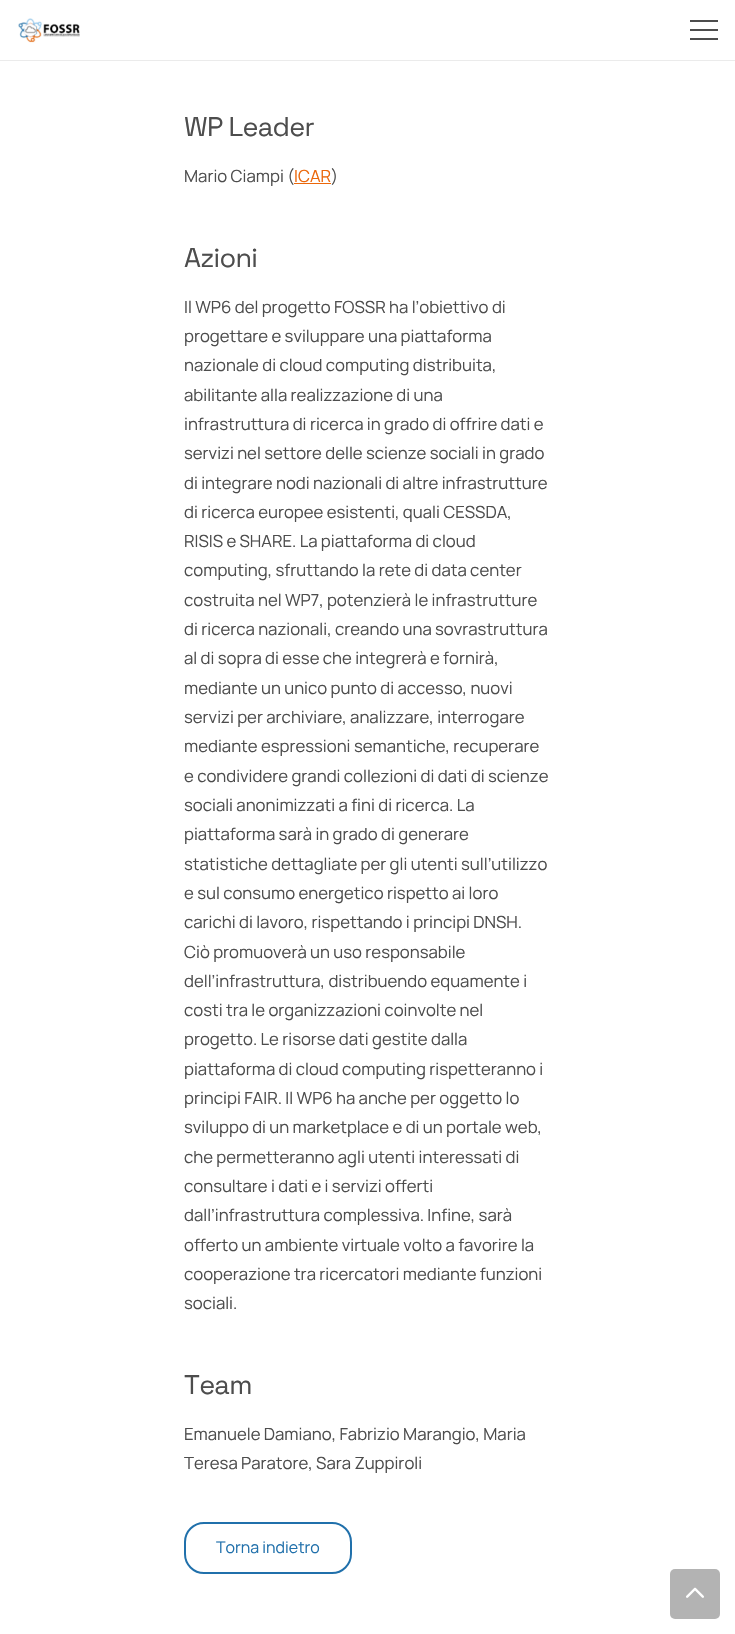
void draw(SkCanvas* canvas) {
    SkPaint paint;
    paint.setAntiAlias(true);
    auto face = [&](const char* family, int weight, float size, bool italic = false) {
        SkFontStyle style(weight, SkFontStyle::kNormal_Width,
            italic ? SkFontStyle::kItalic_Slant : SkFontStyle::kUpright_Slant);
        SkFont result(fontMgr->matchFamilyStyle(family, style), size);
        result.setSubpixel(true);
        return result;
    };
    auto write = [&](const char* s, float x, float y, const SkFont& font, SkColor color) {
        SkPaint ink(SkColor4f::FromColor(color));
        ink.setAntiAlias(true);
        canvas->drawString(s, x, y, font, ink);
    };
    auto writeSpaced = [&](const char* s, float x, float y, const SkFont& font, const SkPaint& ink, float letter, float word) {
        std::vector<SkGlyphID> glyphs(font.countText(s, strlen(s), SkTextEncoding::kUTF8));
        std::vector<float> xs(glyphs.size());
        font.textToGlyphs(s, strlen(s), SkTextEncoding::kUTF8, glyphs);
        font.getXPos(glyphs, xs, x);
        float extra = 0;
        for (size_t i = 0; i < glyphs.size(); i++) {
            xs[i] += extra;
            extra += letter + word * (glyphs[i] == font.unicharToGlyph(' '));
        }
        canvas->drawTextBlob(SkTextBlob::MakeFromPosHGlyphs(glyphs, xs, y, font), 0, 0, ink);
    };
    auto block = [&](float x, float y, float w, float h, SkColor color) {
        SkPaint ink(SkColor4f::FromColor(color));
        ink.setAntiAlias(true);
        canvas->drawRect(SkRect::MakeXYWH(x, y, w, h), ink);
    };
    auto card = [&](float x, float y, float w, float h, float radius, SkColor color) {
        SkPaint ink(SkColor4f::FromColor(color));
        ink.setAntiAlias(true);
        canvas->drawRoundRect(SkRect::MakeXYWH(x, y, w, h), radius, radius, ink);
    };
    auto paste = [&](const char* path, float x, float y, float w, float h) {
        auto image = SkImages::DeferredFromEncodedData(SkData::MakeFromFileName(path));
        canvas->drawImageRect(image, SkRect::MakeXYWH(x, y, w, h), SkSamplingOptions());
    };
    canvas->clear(SK_ColorWHITE);
    block(0, 60, 735, 1, SkColorSetRGB(235, 235, 235));
    paste("pic1.png", 18, 18, 62, 25);
    block(690, 29, 28, 2, SkColorSetRGB(77, 77, 77));
    block(690, 20, 28, 2, SkColorSetRGB(77, 77, 77));
    block(690, 38, 28, 2, SkColorSetRGB(77, 77, 77));
    auto kFont1 = face("Space Grotesk", 400, 27);
    paint.setColor(SkColorSetRGB(77, 77, 77));
    writeSpaced("WP Leader", 184, 136, kFont1, paint, -0.75f, 0);
    auto kFont2 = face("Manrope", 400, 16.75f);
    write("Mario Ciampi (", 184, 182, kFont2, SkColorSetRGB(77, 77, 77));
    write("ICAR", 294, 182, kFont2, SkColorSetRGB(235, 103, 10));
    block(294, 183, 37, 1, SkColorSetRGB(235, 103, 10));
    write(")", 331, 182, kFont2, SkColorSetRGB(77, 77, 77));
    writeSpaced("Azioni", 184, 267, kFont1, paint, -0.75f, 0);
    write("Il WP6 del progetto FOSSR ha l’obiettivo di", 184, 313, kFont2, SkColorSetRGB(77, 77, 77));
    write("progettare e sviluppare una piattaforma", 184, 342, kFont2, SkColorSetRGB(77, 77, 77));
    write("nazionale di cloud computing distribuita,", 184, 371, kFont2, SkColorSetRGB(77, 77, 77));
    write("abilitante alla realizzazione di una", 184, 401, kFont2, SkColorSetRGB(77, 77, 77));
    write("infrastruttura di ricerca in grado di offrire dati e", 184, 430, kFont2, SkColorSetRGB(77, 77, 77));
    write("servizi nel settore delle scienze sociali in grado", 184, 459, kFont2, SkColorSetRGB(77, 77, 77));
    write("di integrare nodi nazionali di altre infrastrutture", 184, 489, kFont2, SkColorSetRGB(77, 77, 77));
    write("di ricerca europee esistenti, quali CESSDA,", 184, 518, kFont2, SkColorSetRGB(77, 77, 77));
    write("RISIS e SHARE. La piattaforma di cloud", 184, 547, kFont2, SkColorSetRGB(77, 77, 77));
    write("computing, sfruttando la rete di data center", 184, 576, kFont2, SkColorSetRGB(77, 77, 77));
    write("costruita nel WP7, potenzierà le infrastrutture", 184, 606, kFont2, SkColorSetRGB(77, 77, 77));
    write("di ricerca nazionali, creando una sovrastruttura", 184, 635, kFont2, SkColorSetRGB(77, 77, 77));
    write("al di sopra di esse che integrerà e fornirà,", 184, 664, kFont2, SkColorSetRGB(77, 77, 77));
    write("mediante un unico punto di accesso, nuovi", 184, 694, kFont2, SkColorSetRGB(77, 77, 77));
    write("servizi per archiviare, analizzare, interrogare", 184, 723, kFont2, SkColorSetRGB(77, 77, 77));
    write("mediante espressioni semantiche, recuperare", 184, 752, kFont2, SkColorSetRGB(77, 77, 77));
    write("e condividere grandi collezioni di dati di scienze", 184, 782, kFont2, SkColorSetRGB(77, 77, 77));
    write("sociali anonimizzati a fini di ricerca. La", 184, 811, kFont2, SkColorSetRGB(77, 77, 77));
    write("piattaforma sarà in grado di generare", 184, 840, kFont2, SkColorSetRGB(77, 77, 77));
    write("statistiche dettagliate per gli utenti sull’utilizzo", 184, 870, kFont2, SkColorSetRGB(77, 77, 77));
    write("e sul consumo energetico rispetto ai loro", 184, 899, kFont2, SkColorSetRGB(77, 77, 77));
    write("carichi di lavoro, rispettando i principi DNSH.", 184, 928, kFont2, SkColorSetRGB(77, 77, 77));
    write("Ciò promuoverà un uso responsabile", 184, 958, kFont2, SkColorSetRGB(77, 77, 77));
    write("dell’infrastruttura, distribuendo equamente i", 184, 987, kFont2, SkColorSetRGB(77, 77, 77));
    write("costi tra le organizzazioni coinvolte nel", 184, 1016, kFont2, SkColorSetRGB(77, 77, 77));
    write("progetto. Le risorse dati gestite dalla", 184, 1045, kFont2, SkColorSetRGB(77, 77, 77));
    write("piattaforma di cloud computing rispetteranno i", 184, 1075, kFont2, SkColorSetRGB(77, 77, 77));
    write("principi FAIR. Il WP6 ha anche per oggetto lo", 184, 1104, kFont2, SkColorSetRGB(77, 77, 77));
    write("sviluppo di un marketplace e di un portale web,", 184, 1133, kFont2, SkColorSetRGB(77, 77, 77));
    write("che permetteranno agli utenti interessati di", 184, 1163, kFont2, SkColorSetRGB(77, 77, 77));
    write("consultare i dati e i servizi offerti", 184, 1192, kFont2, SkColorSetRGB(77, 77, 77));
    write("dall’infrastruttura complessiva. Infine, sarà", 184, 1221, kFont2, SkColorSetRGB(77, 77, 77));
    write("offerto un ambiente virtuale volto a favorire la", 184, 1251, kFont2, SkColorSetRGB(77, 77, 77));
    write("cooperazione tra ricercatori mediante funzioni", 184, 1280, kFont2, SkColorSetRGB(77, 77, 77));
    write("sociali.", 184, 1309, kFont2, SkColorSetRGB(77, 77, 77));
    writeSpaced("Team", 184, 1394, kFont1, paint, -0.75f, 0);
    write("Emanuele Damiano, Fabrizio Marangio, Maria", 184, 1440, kFont2, SkColorSetRGB(77, 77, 77));
    write("Teresa Paratore, Sara Zuppiroli", 184, 1469, kFont2, SkColorSetRGB(77, 77, 77));
    paint.setStyle(SkPaint::kStroke_Style);
    paint.setStrokeWidth(2);
    paint.setColor(SkColorSetRGB(32, 112, 171));
    canvas->drawRoundRect(SkRect::MakeXYWH(185, 1523, 166, 50), 19, 19, paint);
    auto kFont3 = face("Manrope", 400, 16);
    write("Torna indietro", 216, 1553, kFont3, SkColorSetRGB(32, 112, 171));
    card(670, 1569, 50, 50, 5, SkColorSetRGB(179, 179, 179));
    paste("pic2.png", 686, 1587, 18, 11);
}
